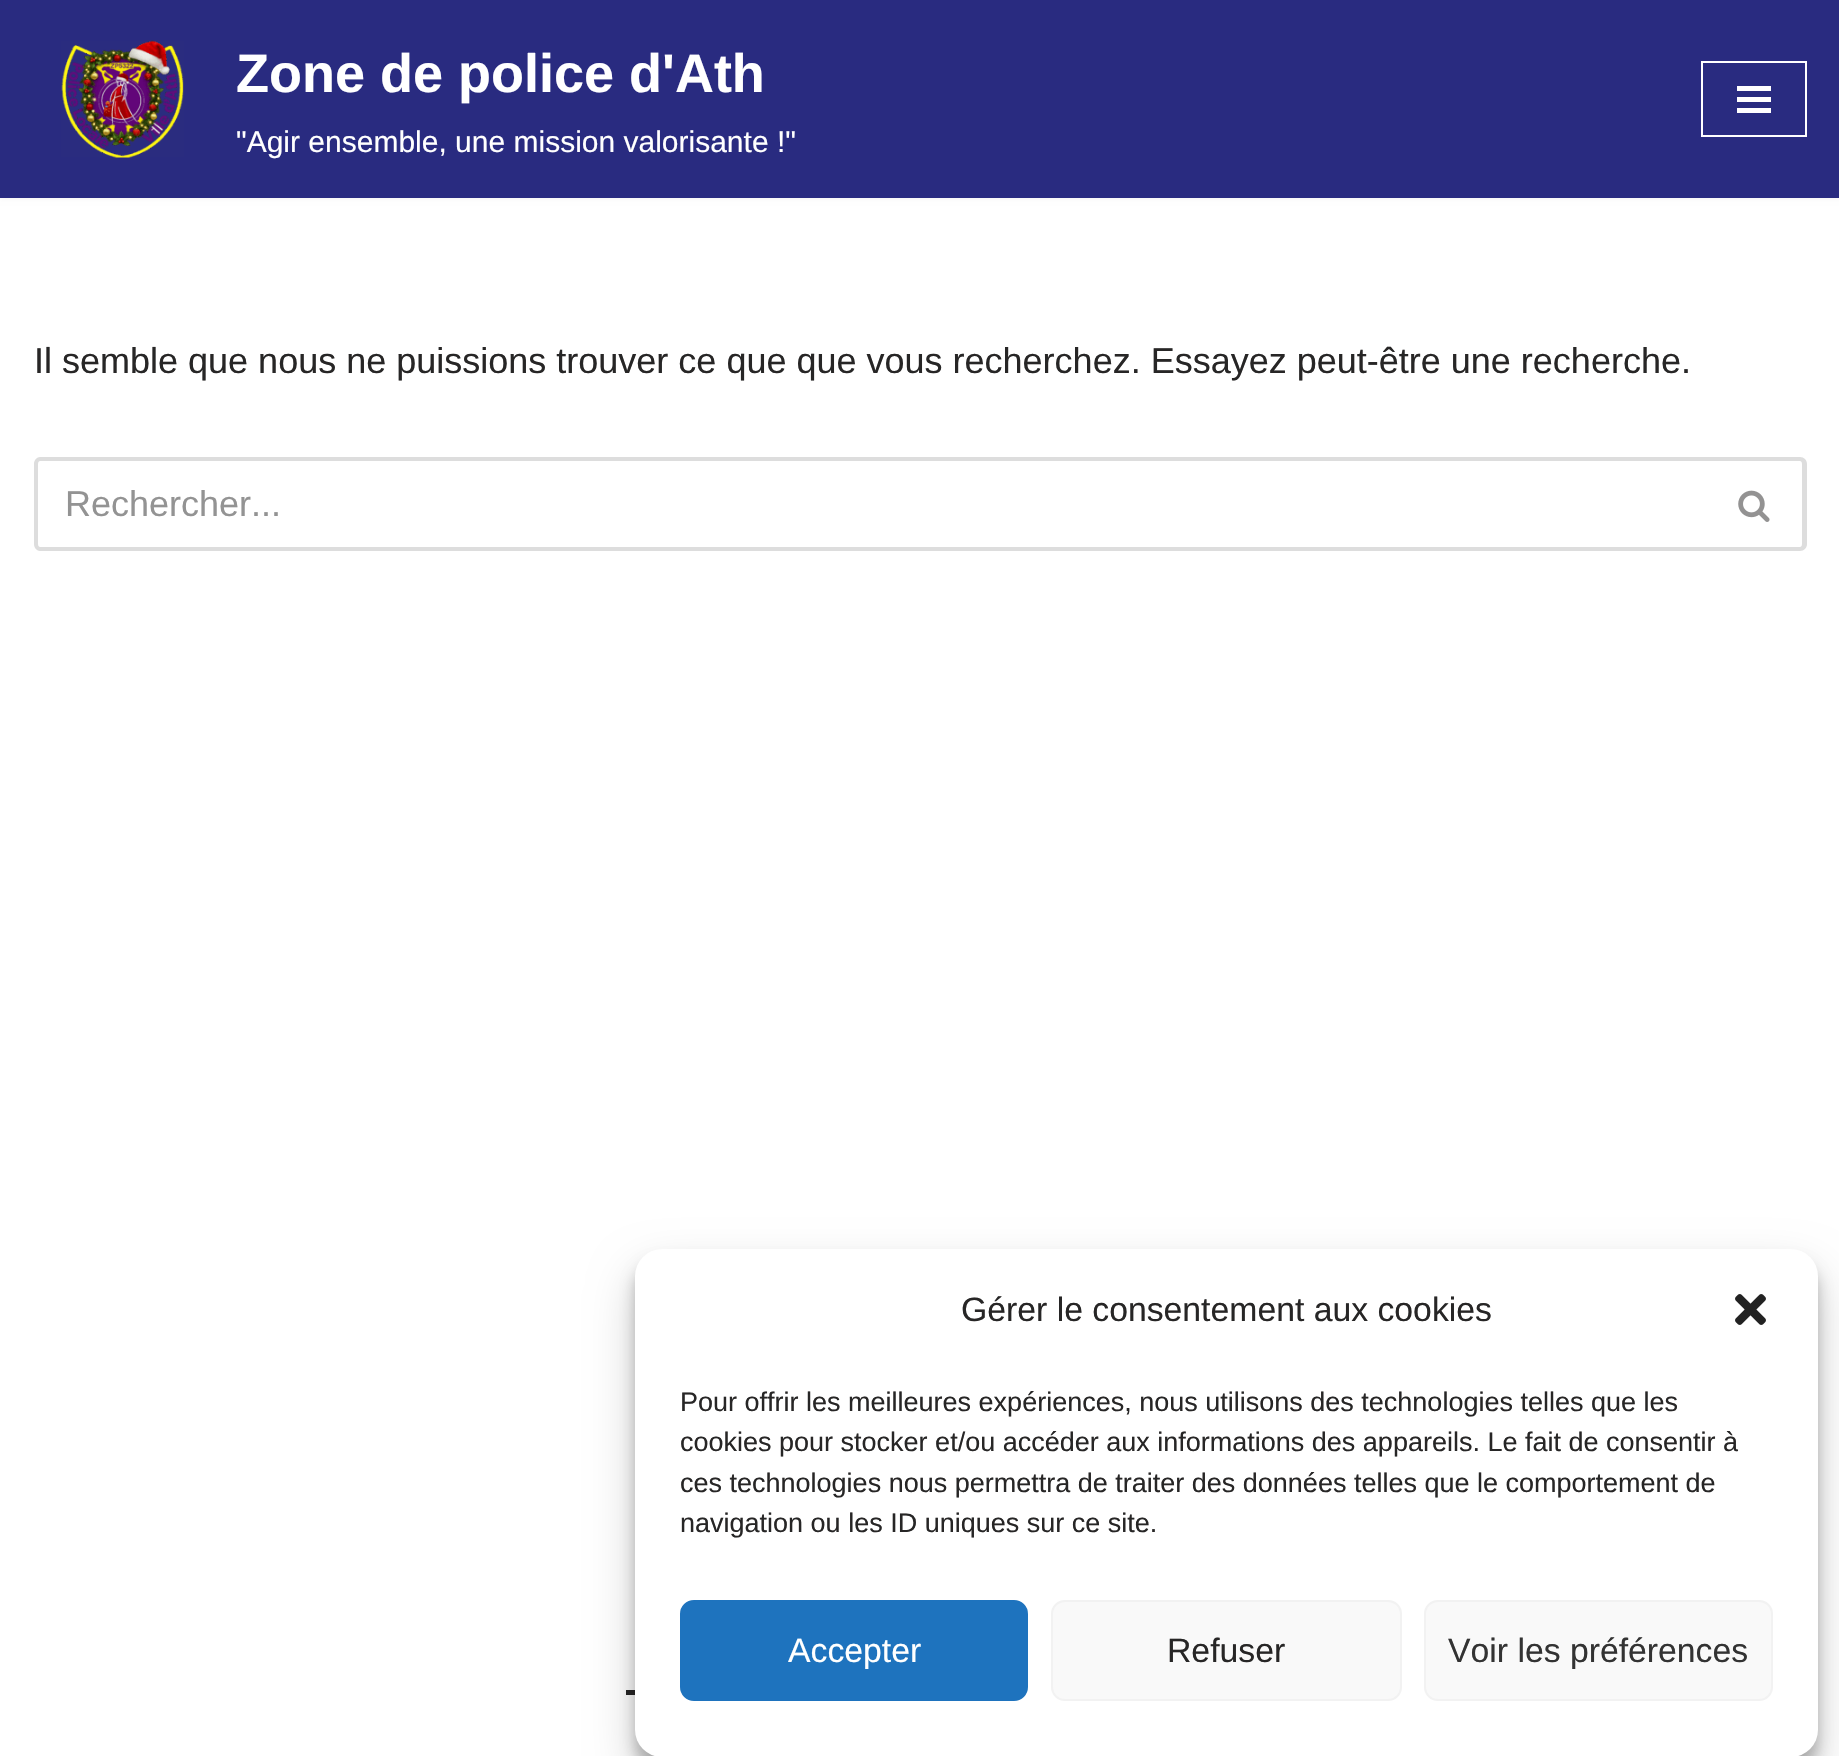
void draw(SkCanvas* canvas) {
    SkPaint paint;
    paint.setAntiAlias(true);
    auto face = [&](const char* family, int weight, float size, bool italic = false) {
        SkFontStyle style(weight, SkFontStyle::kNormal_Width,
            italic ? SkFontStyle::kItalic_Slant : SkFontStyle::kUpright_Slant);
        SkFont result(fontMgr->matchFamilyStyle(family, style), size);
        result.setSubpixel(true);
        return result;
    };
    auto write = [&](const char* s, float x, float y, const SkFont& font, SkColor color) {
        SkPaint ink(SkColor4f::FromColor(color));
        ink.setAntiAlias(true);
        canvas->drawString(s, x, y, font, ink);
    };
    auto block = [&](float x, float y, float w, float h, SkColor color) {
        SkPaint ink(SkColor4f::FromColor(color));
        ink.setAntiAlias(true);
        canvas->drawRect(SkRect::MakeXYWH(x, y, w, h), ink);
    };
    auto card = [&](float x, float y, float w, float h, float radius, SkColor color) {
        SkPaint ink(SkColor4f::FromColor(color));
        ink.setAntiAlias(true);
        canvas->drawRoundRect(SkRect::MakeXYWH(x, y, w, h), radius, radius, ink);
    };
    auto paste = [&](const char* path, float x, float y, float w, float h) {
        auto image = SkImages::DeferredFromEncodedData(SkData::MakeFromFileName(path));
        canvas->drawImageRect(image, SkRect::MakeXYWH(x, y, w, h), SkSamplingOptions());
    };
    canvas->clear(SK_ColorWHITE);
    paint.setColor(SkColorSetARGB(26, 0, 0, 0));
    paint.setMaskFilter(SkMaskFilter::MakeBlur(kNormal_SkBlurStyle, 3.5f));
    canvas->drawRect(SkRect::MakeXYWH(0, -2, 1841, 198), paint);
    paint.setMaskFilter(nullptr);
    block(0, 0, 1839, 198, SkColorSetRGB(41, 43, 128));
    paste("pic1.png", 61, 40, 123, 118);
    auto kFont1 = face("Liberation Sans", 700, 54);
    write("Zone de police d'Ath", 236, 92, kFont1, SK_ColorWHITE);
    auto kFont2 = face("Liberation Sans", 400, 30);
    write("\"Agir ensemble, une mission valorisante !\"", 236, 152, kFont2, SK_ColorWHITE);
    paint.setStyle(SkPaint::kStroke_Style);
    paint.setStrokeWidth(2);
    paint.setColor(SK_ColorWHITE);
    canvas->drawRect(SkRect::MakeXYWH(1702, 62, 104, 74), paint);
    block(1737, 86, 34, 5, SK_ColorWHITE);
    block(1737, 97, 34, 5, SK_ColorWHITE);
    block(1737, 108, 34, 5, SK_ColorWHITE);
    auto kFont3 = face("Liberation Sans", 400, 36);
    write("Il semble que nous ne puissions trouver ce que que vous recherchez. Essayez peut-être une recherche.", 34, 373, kFont3, SkColorSetRGB(39, 38, 38));
    paint.setStyle(SkPaint::kFill_Style);
    paint.setColor(SkColorSetRGB(221, 221, 221));
    canvas->drawPath(SkPathBuilder(SkPathFillType::kEvenOdd).moveTo(40, 457).lineTo(1706, 457).lineTo(1706, 551).lineTo(40, 551).cubicTo(37, 551, 34, 548, 34, 544).lineTo(34, 464).cubicTo(34, 460, 37, 457, 40, 457).close().moveTo(40, 461).lineTo(1706, 461).lineTo(1706, 547).lineTo(40, 547).cubicTo(39, 547, 38, 546, 38, 544).lineTo(38, 464).cubicTo(38, 462, 39, 461, 40, 461).close().detach(), paint);
    write("Rechercher...", 65, 516, kFont3, SkColorSetRGB(147, 147, 147));
    canvas->drawPath(SkPathBuilder(SkPathFillType::kEvenOdd).moveTo(1706, 457).lineTo(1800, 457).cubicTo(1804, 457, 1807, 460, 1807, 464).lineTo(1807, 544).cubicTo(1807, 548, 1804, 551, 1800, 551).lineTo(1706, 551).close().moveTo(1706, 461).lineTo(1800, 461).cubicTo(1801, 461, 1802, 462, 1802, 464).lineTo(1802, 544).cubicTo(1802, 546, 1801, 547, 1800, 547).lineTo(1706, 547).close().detach(), paint);
    paste("pic2.png", 1738, 490, 32, 32);
    block(626, 1690, 9, 5, SkColorSetRGB(39, 38, 38));
    paint.setColor(SkColorSetARGB(59, 0, 0, 0));
    paint.setMaskFilter(SkMaskFilter::MakeBlur(kNormal_SkBlurStyle, 7));
    canvas->drawRoundRect(SkRect::MakeXYWH(635, 1262, 1183, 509), 27, 27, paint);
    paint.setMaskFilter(nullptr);
    paint.setColor(SkColorSetARGB(48, 0, 0, 0));
    paint.setMaskFilter(SkMaskFilter::MakeBlur(kNormal_SkBlurStyle, 22.5f));
    canvas->drawRoundRect(SkRect::MakeXYWH(635, 1271, 1183, 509), 27, 27, paint);
    paint.setMaskFilter(nullptr);
    card(635, 1249, 1183, 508, 27, SK_ColorWHITE);
    auto kFont4 = face("Liberation Sans", 400, 33.75f);
    write("Gérer le consentement aux cookies", 961, 1321, kFont4, SkColorSetRGB(39, 38, 38));
    paste("pic3.png", 1735, 1294, 31, 31);
    auto kFont5 = face("Liberation Sans", 400, 27);
    write("Pour offrir les meilleures expériences, nous utilisons des technologies telles que les", 680, 1411, kFont5, SkColorSetRGB(39, 38, 38));
    write("cookies pour stocker et/ou accéder aux informations des appareils. Le fait de consentir à", 680, 1451, kFont5, SkColorSetRGB(39, 38, 38));
    write("ces technologies nous permettra de traiter des données telles que le comportement de", 680, 1492, kFont5, SkColorSetRGB(39, 38, 38));
    write("navigation ou les ID uniques sur ce site.", 680, 1532, kFont5, SkColorSetRGB(39, 38, 38));
    paint.setColor(SkColorSetRGB(30, 115, 190));
    canvas->drawRoundRect(SkRect::MakeXYWH(681, 1601, 346, 99), 13, 13, paint);
    paint.setStyle(SkPaint::kStroke_Style);
    canvas->drawRoundRect(SkRect::MakeXYWH(681, 1601, 346, 99), 13, 13, paint);
    write("Accepter", 788, 1662, kFont4, SK_ColorWHITE);
    paint.setStyle(SkPaint::kFill_Style);
    paint.setColor(SkColorSetRGB(249, 249, 249));
    canvas->drawRoundRect(SkRect::MakeXYWH(1052, 1601, 349, 99), 13, 13, paint);
    paint.setStyle(SkPaint::kStroke_Style);
    paint.setColor(SkColorSetRGB(242, 242, 242));
    canvas->drawRoundRect(SkRect::MakeXYWH(1052, 1601, 349, 99), 13, 13, paint);
    write("Refuser", 1167, 1662, kFont4, SkColorSetRGB(39, 38, 38));
    paint.setStyle(SkPaint::kFill_Style);
    paint.setColor(SkColorSetRGB(249, 249, 249));
    canvas->drawRoundRect(SkRect::MakeXYWH(1425, 1601, 347, 99), 13, 13, paint);
    paint.setStyle(SkPaint::kStroke_Style);
    paint.setColor(SkColorSetRGB(242, 242, 242));
    canvas->drawRoundRect(SkRect::MakeXYWH(1425, 1601, 347, 99), 13, 13, paint);
    write("Voir les préférences", 1448, 1662, kFont4, SkColorSetRGB(51, 51, 51));
}
